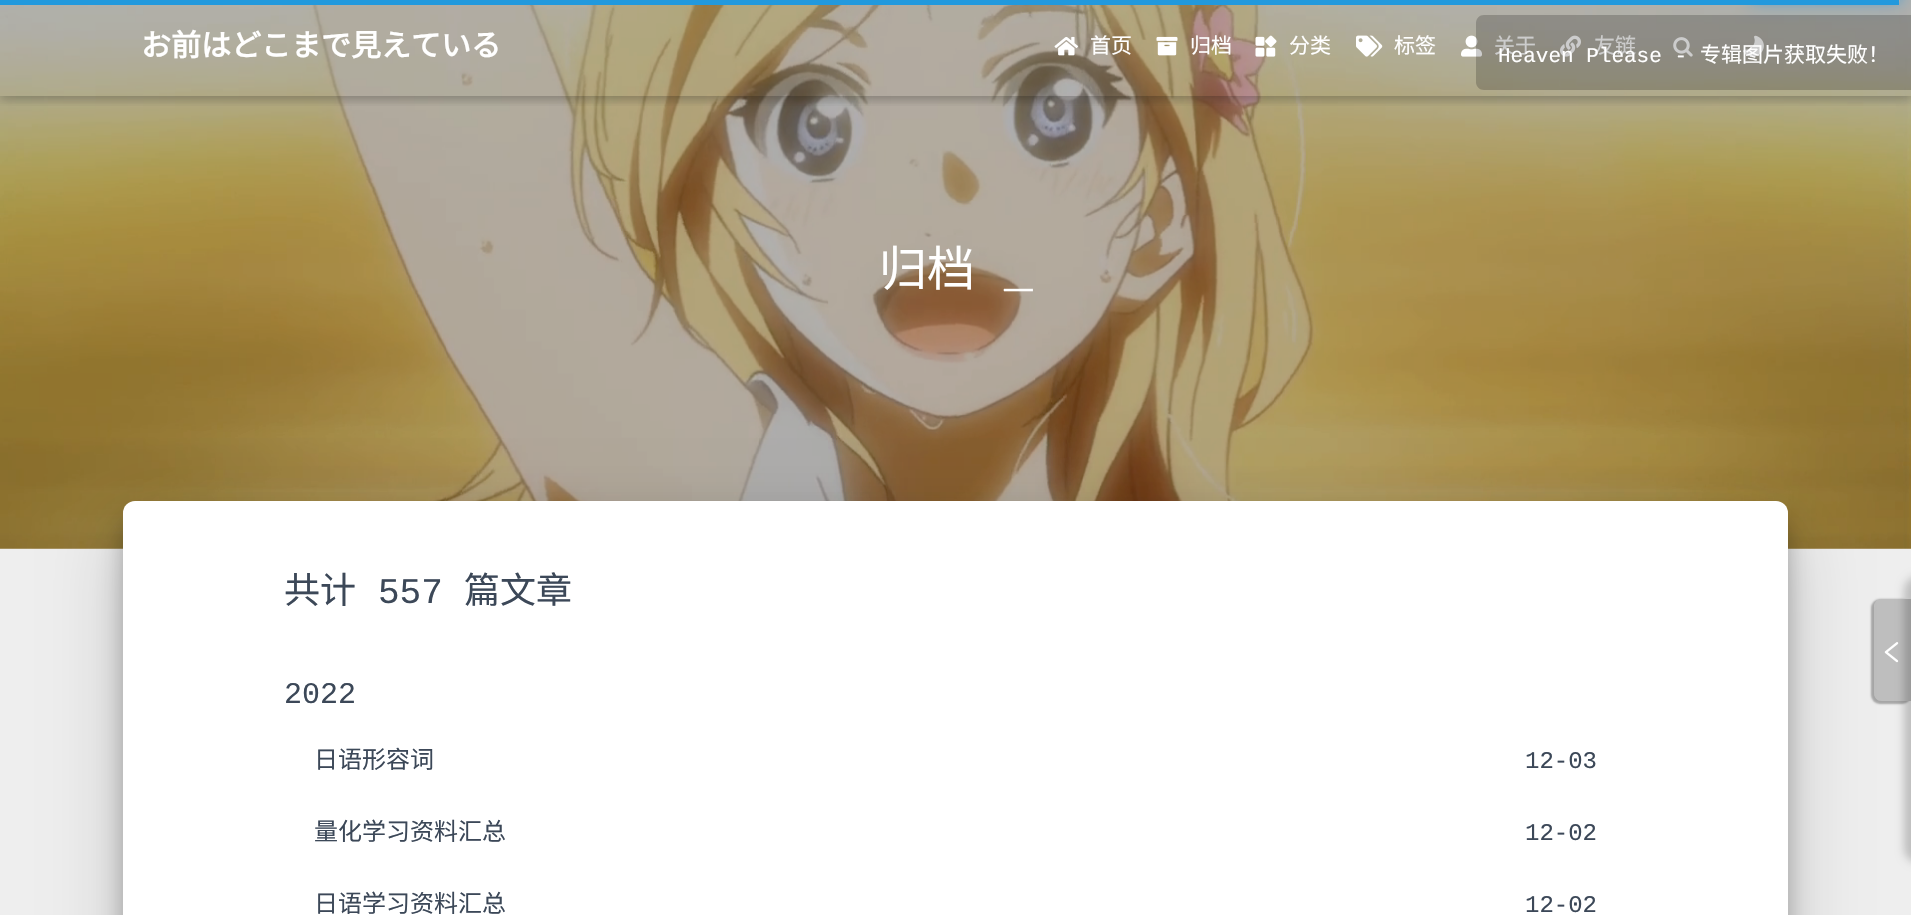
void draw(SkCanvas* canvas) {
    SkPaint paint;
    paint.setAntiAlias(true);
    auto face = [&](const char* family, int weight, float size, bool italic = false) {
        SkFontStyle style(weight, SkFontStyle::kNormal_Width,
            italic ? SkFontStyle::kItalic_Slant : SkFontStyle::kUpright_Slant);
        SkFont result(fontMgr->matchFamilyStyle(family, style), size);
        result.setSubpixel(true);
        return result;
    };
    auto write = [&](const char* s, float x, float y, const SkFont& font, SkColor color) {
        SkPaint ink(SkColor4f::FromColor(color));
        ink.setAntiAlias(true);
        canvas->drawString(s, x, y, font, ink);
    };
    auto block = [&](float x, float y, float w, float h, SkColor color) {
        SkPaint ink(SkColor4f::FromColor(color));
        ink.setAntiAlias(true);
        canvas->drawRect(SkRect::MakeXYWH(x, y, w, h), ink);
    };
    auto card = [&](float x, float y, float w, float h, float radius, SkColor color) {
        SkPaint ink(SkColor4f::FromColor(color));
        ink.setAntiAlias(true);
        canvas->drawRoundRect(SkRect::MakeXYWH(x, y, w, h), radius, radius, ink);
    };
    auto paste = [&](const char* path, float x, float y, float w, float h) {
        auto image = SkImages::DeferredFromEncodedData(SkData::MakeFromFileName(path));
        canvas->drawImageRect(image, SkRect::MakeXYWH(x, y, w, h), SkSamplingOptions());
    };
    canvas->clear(SkColorSetRGB(238, 238, 238));
    paste("pic9.png", 0, 0, 1911, 549);
    canvas->save();
    canvas->clipRect(SkRect::MakeXYWH(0, 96, 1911, 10));
    paint.setColor(SkColorSetARGB(31, 0, 0, 0));
    paint.setMaskFilter(SkMaskFilter::MakeBlur(kNormal_SkBlurStyle, 7.5f));
    canvas->drawRect(SkRect::MakeXYWH(0, 3, 1911, 96), paint);
    paint.setMaskFilter(nullptr);
    canvas->restore();
    canvas->save();
    canvas->clipRect(SkRect::MakeXYWH(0, 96, 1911, 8));
    paint.setColor(SkColorSetARGB(41, 0, 0, 0));
    paint.setMaskFilter(SkMaskFilter::MakeBlur(kNormal_SkBlurStyle, 4));
    canvas->drawRect(SkRect::MakeXYWH(0, 3, 1911, 96), paint);
    paint.setMaskFilter(nullptr);
    canvas->restore();
    block(0, 0, 1899, 5, SkColorSetRGB(34, 153, 221));
    canvas->save();
    canvas->clipPath(SkPathBuilder(SkPathFillType::kEvenOdd).moveTo(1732, 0).lineTo(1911, 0).lineTo(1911, 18).lineTo(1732, 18).close().moveTo(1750, -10).lineTo(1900, -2).lineTo(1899.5f, 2.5f).lineTo(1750, -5.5f).close().detach(), true);
    paint.setColor(SkColorSetRGB(34, 153, 221));
    paint.setMaskFilter(SkMaskFilter::MakeBlur(kNormal_SkBlurStyle, 6));
    canvas->drawRect(SkRect::MakeXYWH(1751, -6, 150, 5), paint);
    paint.setMaskFilter(nullptr);
    canvas->restore();
    canvas->save();
    canvas->clipPath(SkPathBuilder(SkPathFillType::kEvenOdd).moveTo(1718, 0).lineTo(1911, 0).lineTo(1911, 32).lineTo(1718, 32).close().moveTo(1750, -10).lineTo(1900, -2).lineTo(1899.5f, 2.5f).lineTo(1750, -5.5f).close().detach(), true);
    paint.setMaskFilter(SkMaskFilter::MakeBlur(kNormal_SkBlurStyle, 10.5f));
    canvas->drawRect(SkRect::MakeXYWH(1751, -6, 150, 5), paint);
    paint.setMaskFilter(nullptr);
    canvas->restore();
    auto kFont1 = face("Noto Sans CJK SC", 700, 30);
    write("お前はどこまで見えている", 141, 56, kFont1, SK_ColorWHITE);
    paste("pic1.png", 1054, 36, 25, 20);
    auto kFont2 = face("Noto Sans CJK SC", 400, 21);
    write("首页", 1090, 53, kFont2, SK_ColorWHITE);
    paste("pic2.png", 1156, 36, 22, 20);
    write("归档", 1190, 53, kFont2, SK_ColorWHITE);
    paste("pic3.png", 1255, 35, 22, 22);
    write("分类", 1289, 53, kFont2, SK_ColorWHITE);
    paste("pic4.png", 1356, 35, 27, 22);
    write("标签", 1394, 53, kFont2, SK_ColorWHITE);
    paste("pic5.png", 1461, 35, 21, 22);
    write("关于", 1494, 53, kFont2, SK_ColorWHITE);
    paste("pic6.png", 1560, 35, 21, 22);
    write("友链", 1594, 53, kFont2, SK_ColorWHITE);
    paste("pic7.png", 1673, 37, 20, 20);
    paste("pic8.png", 1743, 35, 21, 22);
    auto kFont3 = face("Noto Sans CJK SC", 400, 48);
    write("归档", 879, 286, kFont3, SK_ColorWHITE);
    auto kFont4 = face("Liberation Mono", 400, 48);
    write("_", 1004, 286, kFont4, SK_ColorWHITE);
    paint.setColor(SkColorSetARGB(51, 0, 0, 0));
    canvas->drawPath(SkPathBuilder().moveTo(1484, 15).lineTo(1911, 15).lineTo(1911, 90).lineTo(1484, 90).cubicTo(1479.5f, 90, 1476, 86.5f, 1476, 82).lineTo(1476, 23).cubicTo(1476, 18.5f, 1479.5f, 15, 1484, 15).close().detach(), paint);
    auto kFont5 = face("Liberation Mono", 400, 21);
    write("Heaven Please -", 1498, 62, kFont5, SK_ColorWHITE);
    write("专辑图片获取失败！", 1700, 62, kFont2, SK_ColorWHITE);
    paint.setColor(SkColorSetARGB(48, 0, 0, 0));
    paint.setMaskFilter(SkMaskFilter::MakeBlur(kNormal_SkBlurStyle, 37.5f));
    canvas->drawRoundRect(SkRect::MakeXYWH(123, 527, 1665, 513), 12, 12, paint);
    paint.setMaskFilter(nullptr);
    paint.setColor(SkColorSetARGB(61, 0, 0, 0));
    paint.setMaskFilter(SkMaskFilter::MakeBlur(kNormal_SkBlurStyle, 11));
    canvas->drawRoundRect(SkRect::MakeXYWH(123, 519, 1665, 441), 12, 12, paint);
    paint.setMaskFilter(nullptr);
    card(123, 501, 1665, 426, 12, SK_ColorWHITE);
    auto kFont6 = face("Noto Sans CJK SC", 400, 36);
    write("共计", 284, 603, kFont6, SkColorSetRGB(60, 72, 88));
    auto kFont7 = face("Liberation Mono", 400, 36);
    write("557", 378, 603, kFont7, SkColorSetRGB(60, 72, 88));
    write("篇文章", 464, 603, kFont6, SkColorSetRGB(60, 72, 88));
    auto kFont8 = face("Liberation Mono", 400, 30);
    write("2022", 284, 703, kFont8, SkColorSetRGB(60, 72, 88));
    auto kFont9 = face("Noto Sans CJK SC", 400, 24);
    write("日语形容词", 314, 768, kFont9, SkColorSetRGB(60, 72, 88));
    auto kFont10 = face("Liberation Mono", 400, 24);
    write("12-03", 1525, 768, kFont10, SkColorSetRGB(60, 72, 88));
    write("量化学习资料汇总", 314, 840, kFont9, SkColorSetRGB(60, 72, 88));
    write("12-02", 1525, 840, kFont10, SkColorSetRGB(60, 72, 88));
    write("日语学习资料汇总", 314, 912, kFont9, SkColorSetRGB(60, 72, 88));
    write("12-02", 1525, 912, kFont10, SkColorSetRGB(60, 72, 88));
    paint.setColor(SkColorSetARGB(51, 0, 0, 0));
    paint.setMaskFilter(SkMaskFilter::MakeBlur(kNormal_SkBlurStyle, 4));
    canvas->drawRoundRect(SkRect::MakeXYWH(1904, 576, 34, 287), 15, 15, paint);
    paint.setMaskFilter(nullptr);
    canvas->save();
    canvas->clipPath(SkPathBuilder(SkPathFillType::kEvenOdd).moveTo(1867, 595).lineTo(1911, 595).lineTo(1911, 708).lineTo(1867, 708).close().moveTo(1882, 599).lineTo(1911, 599).lineTo(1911, 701).lineTo(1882, 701).cubicTo(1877.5f, 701, 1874, 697.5f, 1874, 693).lineTo(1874, 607).cubicTo(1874, 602.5f, 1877.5f, 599, 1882, 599).close().detach(), true);
    paint.setColor(SkColorSetARGB(77, 0, 0, 0));
    paint.setMaskFilter(SkMaskFilter::MakeBlur(kNormal_SkBlurStyle, 1));
    canvas->drawRoundRect(SkRect::MakeXYWH(1871, 599, 40, 105), 9, 9, paint);
    paint.setMaskFilter(nullptr);
    canvas->restore();
    paint.setColor(SkColorSetARGB(51, 0, 0, 0));
    canvas->drawPath(SkPathBuilder().moveTo(1882, 599).lineTo(1911, 599).lineTo(1911, 701).lineTo(1882, 701).cubicTo(1877.5f, 701, 1874, 697.5f, 1874, 693).lineTo(1874, 607).cubicTo(1874, 602.5f, 1877.5f, 599, 1882, 599).close().detach(), paint);
    paste("pic10.png", 1884, 642, 15, 21);
}
